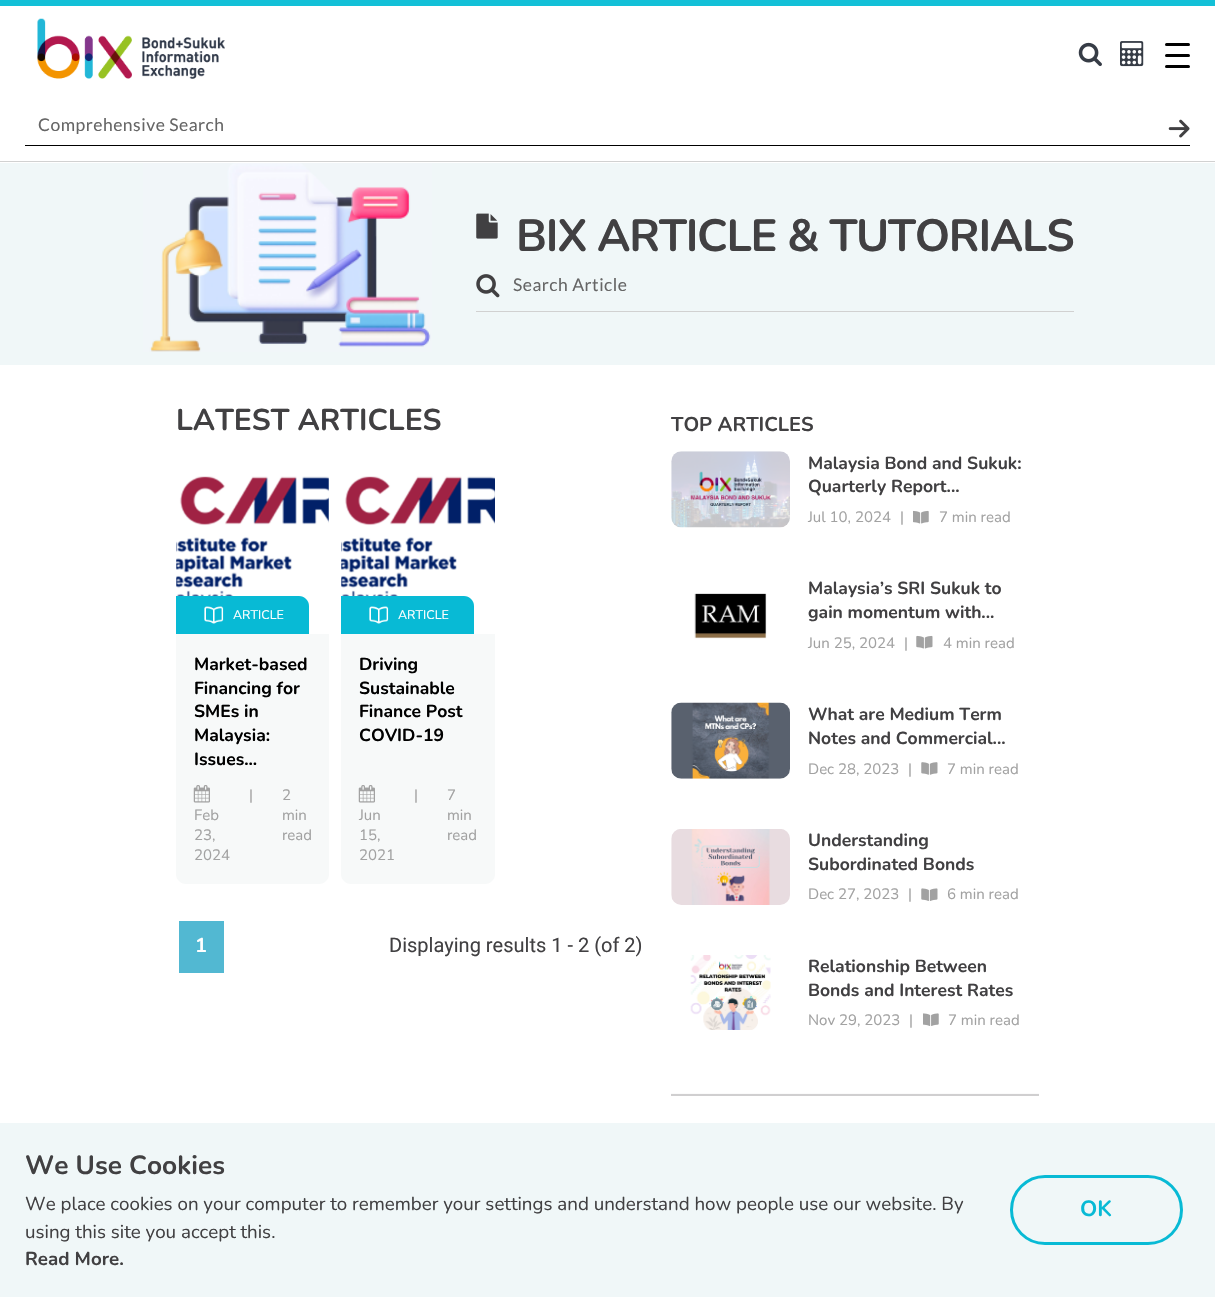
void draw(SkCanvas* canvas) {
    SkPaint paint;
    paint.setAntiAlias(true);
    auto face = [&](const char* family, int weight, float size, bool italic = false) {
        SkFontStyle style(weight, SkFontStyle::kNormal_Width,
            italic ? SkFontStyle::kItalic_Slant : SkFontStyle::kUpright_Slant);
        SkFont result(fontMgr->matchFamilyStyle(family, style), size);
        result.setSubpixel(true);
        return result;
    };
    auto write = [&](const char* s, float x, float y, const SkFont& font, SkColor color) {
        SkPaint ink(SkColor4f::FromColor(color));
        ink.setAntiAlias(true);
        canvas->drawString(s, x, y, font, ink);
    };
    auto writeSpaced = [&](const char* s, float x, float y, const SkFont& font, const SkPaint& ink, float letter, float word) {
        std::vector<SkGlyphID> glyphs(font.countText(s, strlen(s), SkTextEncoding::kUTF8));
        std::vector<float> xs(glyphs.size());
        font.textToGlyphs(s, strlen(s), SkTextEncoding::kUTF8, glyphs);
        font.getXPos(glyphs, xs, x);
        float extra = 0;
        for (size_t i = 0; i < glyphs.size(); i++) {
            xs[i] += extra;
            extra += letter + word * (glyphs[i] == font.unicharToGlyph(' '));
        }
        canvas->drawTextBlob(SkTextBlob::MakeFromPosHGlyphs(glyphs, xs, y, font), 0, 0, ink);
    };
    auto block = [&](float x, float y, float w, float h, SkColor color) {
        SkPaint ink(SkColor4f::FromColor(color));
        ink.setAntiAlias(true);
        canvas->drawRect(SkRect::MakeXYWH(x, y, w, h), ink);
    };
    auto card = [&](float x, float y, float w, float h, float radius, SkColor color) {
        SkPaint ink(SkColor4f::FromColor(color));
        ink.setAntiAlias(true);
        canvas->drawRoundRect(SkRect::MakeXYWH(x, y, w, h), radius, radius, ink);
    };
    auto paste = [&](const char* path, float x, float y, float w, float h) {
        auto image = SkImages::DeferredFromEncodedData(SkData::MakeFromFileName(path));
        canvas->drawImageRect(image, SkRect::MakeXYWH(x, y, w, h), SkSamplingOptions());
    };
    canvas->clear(SK_ColorWHITE);
    block(0, 0, 1215, 6, SkColorSetRGB(19, 192, 215));
    block(0, 161, 1215, 1, SkColorSetRGB(209, 209, 209));
    paste("pic1.png", 37, 18, 188, 61);
    paste("pic2.png", 1078, 42, 24, 25);
    paste("pic3.png", 1120, 41, 24, 26);
    card(1165, 43, 25, 3, 1.5f, SK_ColorBLACK);
    card(1165, 54, 25, 3, 1.5f, SK_ColorBLACK);
    card(1165, 65, 25, 3, 1.5f, SK_ColorBLACK);
    block(25, 145, 1165, 1, SK_ColorBLACK);
    auto kFont1 = face("Lato", 400, 17.5f);
    paint.setColor(SkColorSetRGB(102, 102, 102));
    writeSpaced("Comprehensive Search", 38, 131, kFont1, paint, 0.5f, 0);
    paste("pic4.png", 1168, 119, 22, 19);
    block(0, 163, 1215, 202, SkColorSetRGB(240, 247, 248));
    paste("pic5.png", 143, 163, 289, 189);
    paste("pic6.png", 476, 213, 22, 26);
    auto kFont2 = face("Nunito", 700, 45);
    paint.setColor(SkColorSetRGB(65, 64, 66));
    writeSpaced("BIX ARTICLE & TUTORIALS", 516, 251, kFont2, paint, -1.25f, 0);
    block(476, 311, 598, 1, SkColorSetRGB(209, 209, 209));
    paste("pic7.png", 476, 274, 24, 24);
    paint.setColor(SkColorSetRGB(102, 102, 102));
    writeSpaced("Search Article", 513, 291, kFont1, paint, 0.5f, 0);
    auto kFont3 = face("Nunito", 700, 30);
    write("LATEST ARTICLES", 176, 430, kFont3, SkColorSetRGB(65, 64, 66));
    paste("pic8.png", 176, 476, 153, 133);
    paint.setColor(SkColorSetRGB(8, 186, 213));
    canvas->drawPath(SkPathBuilder().moveTo(176, 596).lineTo(299, 596).cubicTo(304.5f, 596, 309, 600.5f, 309, 606).lineTo(309, 634).lineTo(176, 634).close().detach(), paint);
    paste("pic9.png", 204, 606, 20, 18);
    auto kFont4 = face("Nunito", 400, 12.5f);
    write("ARTICLE", 233, 619, kFont4, SK_ColorWHITE);
    paint.setColor(SkColorSetRGB(247, 249, 249));
    canvas->drawPath(SkPathBuilder().moveTo(176, 634).lineTo(329, 634).lineTo(329, 874).cubicTo(329, 879.5f, 324.5f, 884, 319, 884).lineTo(186, 884).cubicTo(180.5f, 884, 176, 879.5f, 176, 874).close().detach(), paint);
    auto kFont5 = face("Nunito", 700, 17.5f);
    write("Market-based", 194, 670, kFont5, SK_ColorBLACK);
    write("Financing for", 194, 694, kFont5, SK_ColorBLACK);
    write("SMEs in", 194, 717, kFont5, SK_ColorBLACK);
    write("Malaysia:", 194, 741, kFont5, SK_ColorBLACK);
    write("Issues...", 194, 765, kFont5, SK_ColorBLACK);
    paste("pic10.png", 193, 785, 17, 18);
    auto kFont6 = face("Nunito", 400, 15);
    write("Feb", 194, 820, kFont6, SkColorSetRGB(162, 162, 162));
    write("23,", 194, 840, kFont6, SkColorSetRGB(162, 162, 162));
    write("2024", 194, 860, kFont6, SkColorSetRGB(162, 162, 162));
    write("|", 249, 800, kFont6, SkColorSetRGB(162, 162, 162));
    write("2", 282, 800, kFont6, SkColorSetRGB(162, 162, 162));
    write("min", 282, 820, kFont6, SkColorSetRGB(162, 162, 162));
    write("read", 282, 840, kFont6, SkColorSetRGB(162, 162, 162));
    paste("pic11.png", 341, 476, 154, 133);
    paint.setColor(SkColorSetRGB(8, 186, 213));
    canvas->drawPath(SkPathBuilder().moveTo(341, 596).lineTo(464, 596).cubicTo(469.5f, 596, 474, 600.5f, 474, 606).lineTo(474, 634).lineTo(341, 634).close().detach(), paint);
    paste("pic9.png", 369, 606, 20, 18);
    write("ARTICLE", 398, 619, kFont4, SK_ColorWHITE);
    paint.setColor(SkColorSetRGB(247, 249, 249));
    canvas->drawPath(SkPathBuilder().moveTo(341, 634).lineTo(495, 634).lineTo(495, 874).cubicTo(495, 879.5f, 490.5f, 884, 485, 884).lineTo(351, 884).cubicTo(345.5f, 884, 341, 879.5f, 341, 874).close().detach(), paint);
    write("Driving", 359, 670, kFont5, SK_ColorBLACK);
    write("Sustainable", 359, 694, kFont5, SK_ColorBLACK);
    write("Finance Post", 359, 717, kFont5, SK_ColorBLACK);
    write("COVID-19", 359, 741, kFont5, SK_ColorBLACK);
    paste("pic10.png", 358, 785, 17, 18);
    write("Jun", 359, 820, kFont6, SkColorSetRGB(162, 162, 162));
    write("15,", 359, 840, kFont6, SkColorSetRGB(162, 162, 162));
    write("2021", 359, 860, kFont6, SkColorSetRGB(162, 162, 162));
    write("|", 414, 800, kFont6, SkColorSetRGB(162, 162, 162));
    write("7", 447, 800, kFont6, SkColorSetRGB(162, 162, 162));
    write("min", 447, 820, kFont6, SkColorSetRGB(162, 162, 162));
    write("read", 447, 840, kFont6, SkColorSetRGB(162, 162, 162));
    block(179, 921, 45, 52, SkColorSetRGB(82, 184, 210));
    auto kFont7 = face("Nunito", 700, 20);
    write("1", 195, 952, kFont7, SK_ColorWHITE);
    auto kFont8 = face("Roboto", 400, 20);
    write("Displaying results 1 - 2 (of 2)", 389, 952, kFont8, SkColorSetRGB(65, 64, 66));
    write("TOP ARTICLES", 671, 431, kFont7, SkColorSetRGB(65, 64, 66));
    paste("pic12.png", 671, 451, 119, 77);
    write("Malaysia Bond and Sukuk:", 808, 469, kFont5, SkColorSetRGB(65, 64, 66));
    write("Quarterly Report...", 808, 492, kFont5, SkColorSetRGB(65, 64, 66));
    write("Jul 10, 2024", 808, 522, kFont6, SkColorSetRGB(162, 162, 162));
    write("|", 900, 522, kFont6, SkColorSetRGB(162, 162, 162));
    paste("pic13.png", 913, 510, 16, 14);
    write("7 min read", 939, 522, kFont6, SkColorSetRGB(162, 162, 162));
    paste("pic14.png", 694, 593, 73, 46);
    write("Malaysia’s SRI Sukuk to", 808, 594, kFont5, SkColorSetRGB(65, 64, 66));
    write("gain momentum with...", 808, 618, kFont5, SkColorSetRGB(65, 64, 66));
    write("Jun 25, 2024", 808, 648, kFont6, SkColorSetRGB(162, 162, 162));
    write("|", 904, 648, kFont6, SkColorSetRGB(162, 162, 162));
    paste("pic15.png", 916, 635, 17, 14);
    write("4 min read", 943, 648, kFont6, SkColorSetRGB(162, 162, 162));
    paste("pic16.png", 671, 702, 119, 77);
    write("What are Medium Term", 808, 720, kFont5, SkColorSetRGB(65, 64, 66));
    write("Notes and Commercial...", 808, 744, kFont5, SkColorSetRGB(65, 64, 66));
    write("Dec 28, 2023", 808, 774, kFont6, SkColorSetRGB(162, 162, 162));
    write("|", 908, 774, kFont6, SkColorSetRGB(162, 162, 162));
    paste("pic17.png", 921, 762, 17, 13);
    write("7 min read", 947, 774, kFont6, SkColorSetRGB(162, 162, 162));
    paste("pic18.png", 671, 829, 119, 76);
    write("Understanding", 808, 846, kFont5, SkColorSetRGB(65, 64, 66));
    write("Subordinated Bonds", 808, 870, kFont5, SkColorSetRGB(65, 64, 66));
    write("Dec 27, 2023", 808, 899, kFont6, SkColorSetRGB(162, 162, 162));
    write("|", 908, 899, kFont6, SkColorSetRGB(162, 162, 162));
    paste("pic19.png", 921, 888, 17, 13);
    write("6 min read", 947, 899, kFont6, SkColorSetRGB(162, 162, 162));
    paste("pic20.png", 690, 955, 81, 75);
    write("Relationship Between", 808, 972, kFont5, SkColorSetRGB(65, 64, 66));
    write("Bonds and Interest Rates", 808, 996, kFont5, SkColorSetRGB(65, 64, 66));
    write("Nov 29, 2023", 808, 1025, kFont6, SkColorSetRGB(162, 162, 162));
    write("|", 909, 1025, kFont6, SkColorSetRGB(162, 162, 162));
    paste("pic21.png", 923, 1013, 16, 13);
    write("7 min read", 948, 1025, kFont6, SkColorSetRGB(162, 162, 162));
    block(671, 1094, 368, 2, SkColorSetRGB(208, 207, 208));
    block(671, 1093, 368, 1, SkColorSetRGB(251, 251, 251));
    block(0, 1123, 1215, 174, SkColorSetRGB(240, 247, 248));
    auto kFont9 = face("Nunito", 700, 26.25f);
    write("We Use Cookies", 25, 1174, kFont9, SkColorSetRGB(65, 64, 66));
    auto kFont10 = face("Nunito", 400, 18.75f);
    write("We place cookies on your computer to remember your settings and understand how people use our website. By", 25, 1210, kFont10, SkColorSetRGB(65, 64, 66));
    write("using this site you accept this.", 25, 1238, kFont10, SkColorSetRGB(65, 64, 66));
    auto kFont11 = face("Nunito", 700, 18.75f);
    write("Read More.", 25, 1265, kFont11, SkColorSetRGB(65, 64, 66));
    paint.setStyle(SkPaint::kStroke_Style);
    paint.setStrokeWidth(3);
    paint.setColor(SkColorSetRGB(8, 186, 213));
    canvas->drawRoundRect(SkRect::MakeXYWH(1011.5f, 1176.5f, 170, 67), 33.5f, 33.5f, paint);
    auto kFont12 = face("Nunito", 700, 22);
    write("OK", 1080, 1216, kFont12, SkColorSetRGB(8, 186, 213));
}
